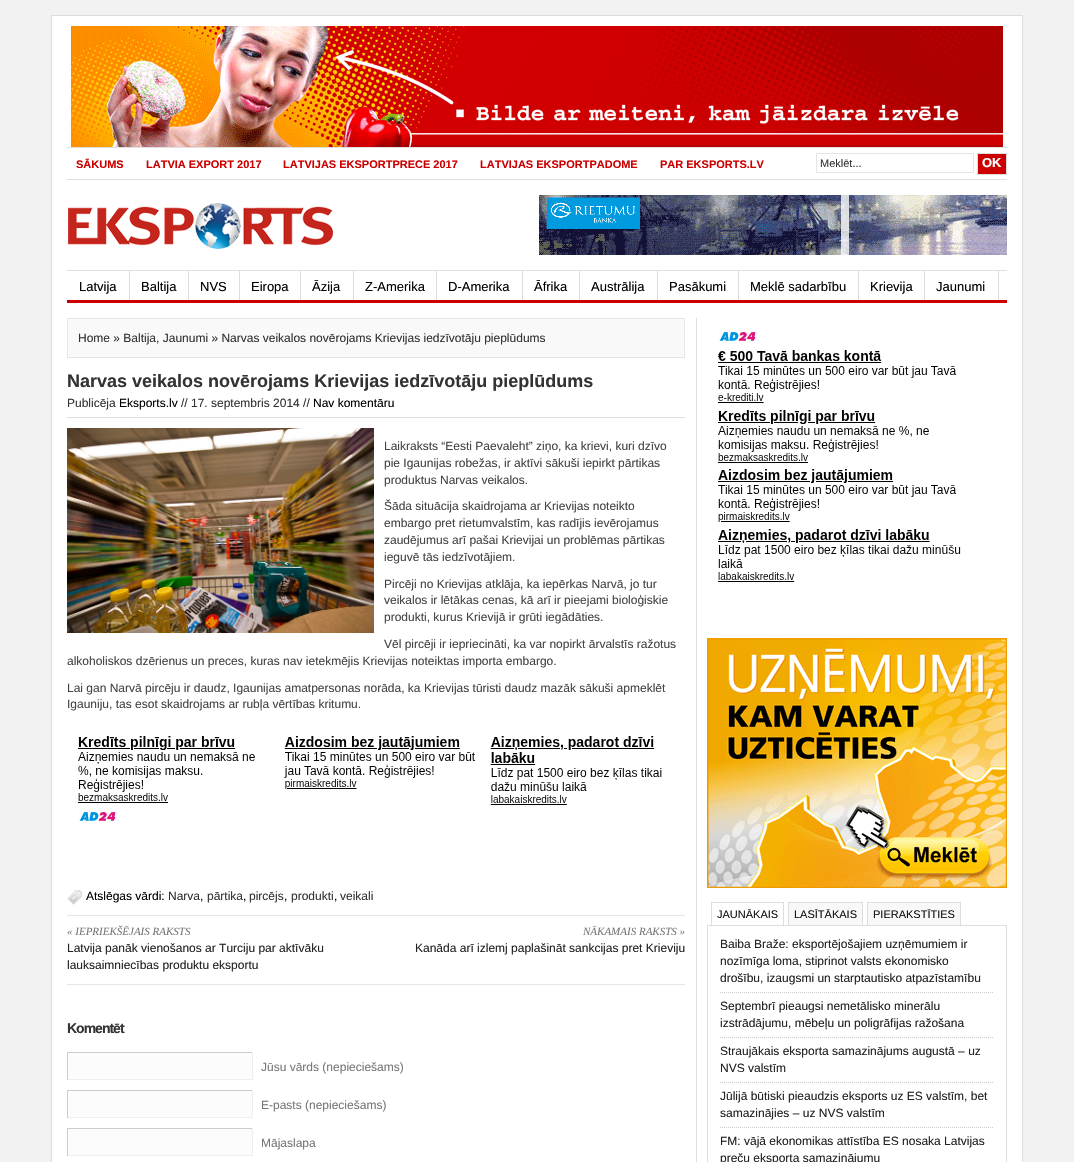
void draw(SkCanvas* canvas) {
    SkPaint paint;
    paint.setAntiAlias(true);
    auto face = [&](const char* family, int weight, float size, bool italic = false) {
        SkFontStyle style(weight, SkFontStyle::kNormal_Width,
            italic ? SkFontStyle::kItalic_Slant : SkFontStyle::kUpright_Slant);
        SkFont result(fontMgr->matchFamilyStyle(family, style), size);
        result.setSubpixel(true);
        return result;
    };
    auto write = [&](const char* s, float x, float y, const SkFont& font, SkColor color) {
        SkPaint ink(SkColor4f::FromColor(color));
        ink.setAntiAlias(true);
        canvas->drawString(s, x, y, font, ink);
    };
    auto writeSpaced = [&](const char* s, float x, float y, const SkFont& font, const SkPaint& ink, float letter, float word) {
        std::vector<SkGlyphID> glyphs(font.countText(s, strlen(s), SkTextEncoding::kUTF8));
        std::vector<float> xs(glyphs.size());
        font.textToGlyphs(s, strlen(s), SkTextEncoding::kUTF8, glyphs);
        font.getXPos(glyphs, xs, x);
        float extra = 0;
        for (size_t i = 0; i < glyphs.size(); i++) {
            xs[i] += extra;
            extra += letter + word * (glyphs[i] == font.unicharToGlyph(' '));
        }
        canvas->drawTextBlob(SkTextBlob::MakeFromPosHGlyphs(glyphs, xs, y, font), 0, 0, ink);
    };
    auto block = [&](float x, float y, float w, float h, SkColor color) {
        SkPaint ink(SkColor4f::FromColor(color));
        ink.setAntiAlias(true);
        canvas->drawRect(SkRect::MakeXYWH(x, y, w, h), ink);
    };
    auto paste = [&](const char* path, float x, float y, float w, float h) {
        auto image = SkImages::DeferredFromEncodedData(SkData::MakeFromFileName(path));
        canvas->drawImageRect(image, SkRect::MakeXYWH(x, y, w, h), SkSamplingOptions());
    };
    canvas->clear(SkColorSetRGB(242, 242, 242));
    paint.setColor(SK_ColorWHITE);
    canvas->drawRect(SkRect::MakeXYWH(51.5f, 15.5f, 971, 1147), paint);
    paint.setStyle(SkPaint::kStroke_Style);
    paint.setStrokeWidth(1);
    paint.setColor(SkColorSetRGB(221, 221, 221));
    canvas->drawRect(SkRect::MakeXYWH(51.5f, 15.5f, 971, 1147), paint);
    paste("pic1.png", 71, 26, 932, 121);
    block(67, 147, 940, 1, SkColorSetRGB(224, 224, 224));
    block(67, 179, 940, 1, SkColorSetRGB(224, 224, 224));
    auto kFont1 = face("Liberation Sans", 700, 11);
    write("SĀKUMS", 76, 168, kFont1, SkColorSetRGB(204, 0, 0));
    write("LATVIA EXPORT 2017", 146, 168, kFont1, SkColorSetRGB(204, 0, 0));
    write("LATVIJAS EKSPORTPRECE 2017", 283, 168, kFont1, SkColorSetRGB(204, 0, 0));
    write("LATVIJAS EKSPORTPADOME", 480, 168, kFont1, SkColorSetRGB(204, 0, 0));
    write("PAR EKSPORTS.LV", 660, 168, kFont1, SkColorSetRGB(204, 0, 0));
    paint.setColor(SkColorSetRGB(230, 230, 230));
    canvas->drawRect(SkRect::MakeXYWH(816.5f, 153.5f, 157, 19), paint);
    auto kFont2 = face("Liberation Sans", 400, 11);
    write("Meklēt...", 820, 167, kFont2, SkColorSetRGB(51, 51, 51));
    paint.setStyle(SkPaint::kFill_Style);
    paint.setColor(SkColorSetRGB(204, 0, 0));
    canvas->drawRect(SkRect::MakeXYWH(977.5f, 153.5f, 29, 21), paint);
    paint.setStyle(SkPaint::kStroke_Style);
    paint.setColor(SkColorSetRGB(221, 221, 221));
    canvas->drawRect(SkRect::MakeXYWH(977.5f, 153.5f, 29, 21), paint);
    auto kFont3 = face("Liberation Sans", 700, 13);
    write("OK", 982, 167, kFont3, SK_ColorWHITE);
    paste("pic2.png", 68, 203, 265, 46);
    paste("pic3.png", 539, 195, 468, 60);
    block(67, 270, 940, 1, SkColorSetRGB(224, 224, 224));
    block(67, 300, 940, 3, SkColorSetRGB(204, 0, 0));
    block(129, 271, 1, 29, SkColorSetRGB(221, 221, 221));
    auto kFont4 = face("Liberation Sans", 400, 13);
    write("Latvija", 79, 291, kFont4, SK_ColorBLACK);
    block(188, 271, 1, 29, SkColorSetRGB(221, 221, 221));
    write("Baltija", 141, 291, kFont4, SK_ColorBLACK);
    block(239, 271, 1, 29, SkColorSetRGB(221, 221, 221));
    write("NVS", 200, 291, kFont4, SK_ColorBLACK);
    block(300, 271, 1, 29, SkColorSetRGB(221, 221, 221));
    write("Eiropa", 251, 291, kFont4, SK_ColorBLACK);
    block(353, 271, 1, 29, SkColorSetRGB(221, 221, 221));
    write("Āzija", 312, 291, kFont4, SK_ColorBLACK);
    block(436, 271, 1, 29, SkColorSetRGB(221, 221, 221));
    write("Z-Amerika", 365, 291, kFont4, SK_ColorBLACK);
    block(522, 271, 1, 29, SkColorSetRGB(221, 221, 221));
    write("D-Amerika", 448, 291, kFont4, SK_ColorBLACK);
    block(579, 271, 1, 29, SkColorSetRGB(221, 221, 221));
    write("Āfrika", 534, 291, kFont4, SK_ColorBLACK);
    block(657, 271, 1, 29, SkColorSetRGB(221, 221, 221));
    write("Austrālija", 591, 291, kFont4, SK_ColorBLACK);
    block(738, 271, 1, 29, SkColorSetRGB(221, 221, 221));
    write("Pasākumi", 669, 291, kFont4, SK_ColorBLACK);
    block(858, 271, 1, 29, SkColorSetRGB(221, 221, 221));
    write("Meklē sadarbību", 750, 291, kFont4, SK_ColorBLACK);
    block(924, 271, 1, 29, SkColorSetRGB(221, 221, 221));
    write("Krievija", 870, 291, kFont4, SK_ColorBLACK);
    block(998, 271, 1, 29, SkColorSetRGB(221, 221, 221));
    write("Jaunumi", 936, 291, kFont4, SK_ColorBLACK);
    paint.setStyle(SkPaint::kFill_Style);
    paint.setColor(SkColorSetRGB(249, 249, 249));
    canvas->drawRect(SkRect::MakeXYWH(67.5f, 318.5f, 617, 39), paint);
    paint.setStyle(SkPaint::kStroke_Style);
    paint.setColor(SkColorSetRGB(230, 230, 230));
    canvas->drawRect(SkRect::MakeXYWH(67.5f, 318.5f, 617, 39), paint);
    auto kFont5 = face("Liberation Sans", 400, 12);
    write("Home » Baltija, Jaunumi » Narvas veikalos novērojams Krievijas iedzīvotāju pieplūdums", 78, 342, kFont5, SkColorSetRGB(51, 51, 51));
    auto kFont6 = face("Liberation Sans", 700, 18);
    write("Narvas veikalos novērojams Krievijas iedzīvotāju pieplūdums", 67, 387, kFont6, SkColorSetRGB(51, 51, 51));
    block(67, 417, 618, 1, SkColorSetRGB(221, 221, 221));
    write("Publicēja", 67, 407, kFont5, SkColorSetRGB(51, 51, 51));
    write("Eksports.lv", 119, 407, kFont5, SK_ColorBLACK);
    write("// 17. septembris 2014 //", 181, 407, kFont5, SkColorSetRGB(51, 51, 51));
    write("Nav komentāru", 313, 407, kFont5, SK_ColorBLACK);
    paste("pic4.png", 67, 428, 307, 205);
    write("Laikraksts “Eesti Paevaleht” ziņo, ka krievi, kuri dzīvo", 384, 450, kFont5, SkColorSetRGB(68, 68, 68));
    write("pie Igaunijas robežas, ir aktīvi sākuši iepirkt pārtikas", 384, 467, kFont5, SkColorSetRGB(68, 68, 68));
    write("produktus Narvas veikalos.", 384, 484, kFont5, SkColorSetRGB(68, 68, 68));
    write("Šāda situācija skaidrojama ar Krievijas noteikto", 384, 510, kFont5, SkColorSetRGB(68, 68, 68));
    write("embargo pret rietumvalstīm, kas radījis ievērojamus", 384, 527, kFont5, SkColorSetRGB(68, 68, 68));
    write("zaudējumus arī pašai Krievijai un problēmas pārtikas", 384, 544, kFont5, SkColorSetRGB(68, 68, 68));
    write("ieguvē tās iedzīvotājiem.", 384, 561, kFont5, SkColorSetRGB(68, 68, 68));
    write("Pircēji no Krievijas atklāja, ka iepērkas Narvā, jo tur", 384, 588, kFont5, SkColorSetRGB(68, 68, 68));
    write("veikalos ir lētākas cenas, kā arī ir pieejami bioloģiskie", 384, 604, kFont5, SkColorSetRGB(68, 68, 68));
    write("produkti, kurus Krievijā ir grūti iegādāties.", 384, 621, kFont5, SkColorSetRGB(68, 68, 68));
    write("Vēl pircēji ir iepriecināti, ka var nopirkt ārvalstīs ražotus", 384, 648, kFont5, SkColorSetRGB(68, 68, 68));
    write("alkoholiskos dzērienus un preces, kuras nav ietekmējis Krievijas noteiktas importa embargo.", 67, 665, kFont5, SkColorSetRGB(68, 68, 68));
    write("Lai gan Narvā pircēju ir daudz, Igaunijas amatpersonas norāda, ka Krievijas tūristi daudz mazāk sākuši apmeklēt", 67, 692, kFont5, SkColorSetRGB(68, 68, 68));
    write("Igauniju, tas esot skaidrojams ar rubļa vērtības kritumu.", 67, 708, kFont5, SkColorSetRGB(68, 68, 68));
    paste("pic5.png", 78, 736, 584, 85);
    paste("pic6.png", 67, 890, 15, 15);
    write("Atslēgas vārdi:", 86, 900, kFont5, SK_ColorBLACK);
    write("Narva", 168, 900, kFont5, SkColorSetRGB(51, 51, 51));
    write(",", 200, 900, kFont5, SK_ColorBLACK);
    write("pārtika", 207, 900, kFont5, SkColorSetRGB(51, 51, 51));
    write(",", 243, 900, kFont5, SK_ColorBLACK);
    write("pircējs", 249, 900, kFont5, SkColorSetRGB(51, 51, 51));
    write(",", 284, 900, kFont5, SK_ColorBLACK);
    write("produkti", 291, 900, kFont5, SkColorSetRGB(51, 51, 51));
    write(",", 334, 900, kFont5, SK_ColorBLACK);
    write("veikali", 340, 900, kFont5, SkColorSetRGB(51, 51, 51));
    block(67, 915, 618, 1, SkColorSetRGB(230, 230, 230));
    auto kFont7 = face("Liberation Serif", 400, 11, true);
    write("« IEPRIEKŠĒJAIS RAKSTS", 67, 935, kFont7, SkColorSetRGB(119, 119, 119));
    write("Latvija panāk vienošanos ar Turciju par aktīvāku", 67, 952, kFont5, SkColorSetRGB(34, 34, 34));
    write("lauksaimniecības produktu eksportu", 67, 969, kFont5, SkColorSetRGB(34, 34, 34));
    write("NĀKAMAIS RAKSTS »", 583, 935, kFont7, SkColorSetRGB(119, 119, 119));
    write("Kanāda arī izlemj paplašināt sankcijas pret Krieviju", 415, 952, kFont5, SkColorSetRGB(34, 34, 34));
    block(67, 984, 618, 1, SkColorSetRGB(230, 230, 230));
    auto kFont8 = face("Liberation Sans", 700, 14);
    paint.setStyle(SkPaint::kFill_Style);
    paint.setColor(SkColorSetRGB(51, 51, 51));
    writeSpaced("Komentēt", 67, 1033, kFont8, paint, -1, 0);
    block(68, 1053, 184, 26, SkColorSetRGB(252, 252, 252));
    block(67, 1052, 186, 1, SkColorSetRGB(204, 204, 204));
    block(252, 1052, 1, 28, SkColorSetRGB(239, 239, 239));
    block(67, 1079, 186, 1, SkColorSetRGB(239, 239, 239));
    block(67, 1052, 1, 28, SkColorSetRGB(204, 204, 204));
    write("Jūsu vārds (nepieciešams)", 261, 1071, kFont5, SkColorSetRGB(119, 119, 119));
    block(68, 1091, 184, 26, SkColorSetRGB(252, 252, 252));
    block(67, 1090, 186, 1, SkColorSetRGB(204, 204, 204));
    block(252, 1090, 1, 28, SkColorSetRGB(239, 239, 239));
    block(67, 1117, 186, 1, SkColorSetRGB(239, 239, 239));
    block(67, 1090, 1, 28, SkColorSetRGB(204, 204, 204));
    write("E-pasts (nepieciešams)", 261, 1109, kFont5, SkColorSetRGB(119, 119, 119));
    block(68, 1129, 184, 26, SkColorSetRGB(252, 252, 252));
    block(67, 1128, 186, 1, SkColorSetRGB(204, 204, 204));
    block(252, 1128, 1, 28, SkColorSetRGB(239, 239, 239));
    block(67, 1155, 186, 1, SkColorSetRGB(239, 239, 239));
    block(67, 1128, 1, 28, SkColorSetRGB(204, 204, 204));
    write("Mājaslapa", 261, 1147, kFont5, SkColorSetRGB(119, 119, 119));
    block(696, 318, 1, 844, SkColorSetRGB(224, 224, 224));
    paste("pic7.png", 718, 331, 243, 251);
    paste("pic8.png", 707, 638, 300, 250);
    block(707, 925, 300, 1, SkColorSetRGB(221, 221, 221));
    write("JAUNĀKAIS", 717, 918, kFont2, SkColorSetRGB(17, 17, 17));
    block(711, 902, 73, 1, SkColorSetRGB(221, 221, 221));
    block(783, 902, 1, 23, SkColorSetRGB(221, 221, 221));
    block(711, 902, 1, 23, SkColorSetRGB(221, 221, 221));
    block(789, 903, 73, 22, SkColorSetRGB(248, 248, 248));
    write("LASĪTĀKAIS", 794, 918, kFont2, SkColorSetRGB(17, 17, 17));
    block(788, 902, 75, 1, SkColorSetRGB(221, 221, 221));
    block(862, 902, 1, 23, SkColorSetRGB(221, 221, 221));
    block(788, 902, 1, 23, SkColorSetRGB(221, 221, 221));
    block(868, 903, 92, 22, SkColorSetRGB(248, 248, 248));
    write("PIERAKSTĪTIES", 873, 918, kFont2, SkColorSetRGB(17, 17, 17));
    block(867, 902, 94, 1, SkColorSetRGB(221, 221, 221));
    block(960, 902, 1, 23, SkColorSetRGB(221, 221, 221));
    block(867, 902, 1, 23, SkColorSetRGB(221, 221, 221));
    block(1006, 926, 1, 236, SkColorSetRGB(221, 221, 221));
    block(707, 926, 1, 236, SkColorSetRGB(221, 221, 221));
    paint.setStyle(SkPaint::kStroke_Style);
    paint.setColor(SkColorSetRGB(204, 204, 204));
    paint.setPathEffect(SkDashPathEffect::Make({{1, 1}}, 0));
    canvas->drawPath(SkPathBuilder().moveTo(720, 992.5f).lineTo(994, 992.5f).detach(), paint);
    paint.setPathEffect(nullptr);
    write("Baiba Braže: eksportējošajiem uzņēmumiem ir", 720, 948, kFont5, SkColorSetRGB(34, 34, 34));
    write("nozīmīga loma, stiprinot valsts ekonomisko", 720, 965, kFont5, SkColorSetRGB(34, 34, 34));
    write("drošību, izaugsmi un starptautisko atpazīstamību", 720, 982, kFont5, SkColorSetRGB(34, 34, 34));
    paint.setPathEffect(SkDashPathEffect::Make({{1, 1}}, 0));
    canvas->drawPath(SkPathBuilder().moveTo(720, 1037.5f).lineTo(994, 1037.5f).detach(), paint);
    paint.setPathEffect(nullptr);
    write("Septembrī pieaugsi nemetālisko minerālu", 720, 1010, kFont5, SkColorSetRGB(34, 34, 34));
    write("izstrādājumu, mēbeļu un poligrāfijas ražošana", 720, 1027, kFont5, SkColorSetRGB(34, 34, 34));
    paint.setPathEffect(SkDashPathEffect::Make({{1, 1}}, 0));
    canvas->drawPath(SkPathBuilder().moveTo(720, 1082.5f).lineTo(994, 1082.5f).detach(), paint);
    paint.setPathEffect(nullptr);
    write("Straujākais eksporta samazinājums augustā – uz", 720, 1055, kFont5, SkColorSetRGB(34, 34, 34));
    write("NVS valstīm", 720, 1072, kFont5, SkColorSetRGB(34, 34, 34));
    paint.setPathEffect(SkDashPathEffect::Make({{1, 1}}, 0));
    canvas->drawPath(SkPathBuilder().moveTo(720, 1127.5f).lineTo(994, 1127.5f).detach(), paint);
    paint.setPathEffect(nullptr);
    write("Jūlijā būtiski pieaudzis eksports uz ES valstīm, bet", 720, 1100, kFont5, SkColorSetRGB(34, 34, 34));
    write("samazinājies – uz NVS valstīm", 720, 1117, kFont5, SkColorSetRGB(34, 34, 34));
    write("FM: vājā ekonomikas attīstība ES nosaka Latvijas", 720, 1145, kFont5, SkColorSetRGB(34, 34, 34));
    write("preču eksporta samazinājumu", 720, 1162, kFont5, SkColorSetRGB(34, 34, 34));
}
